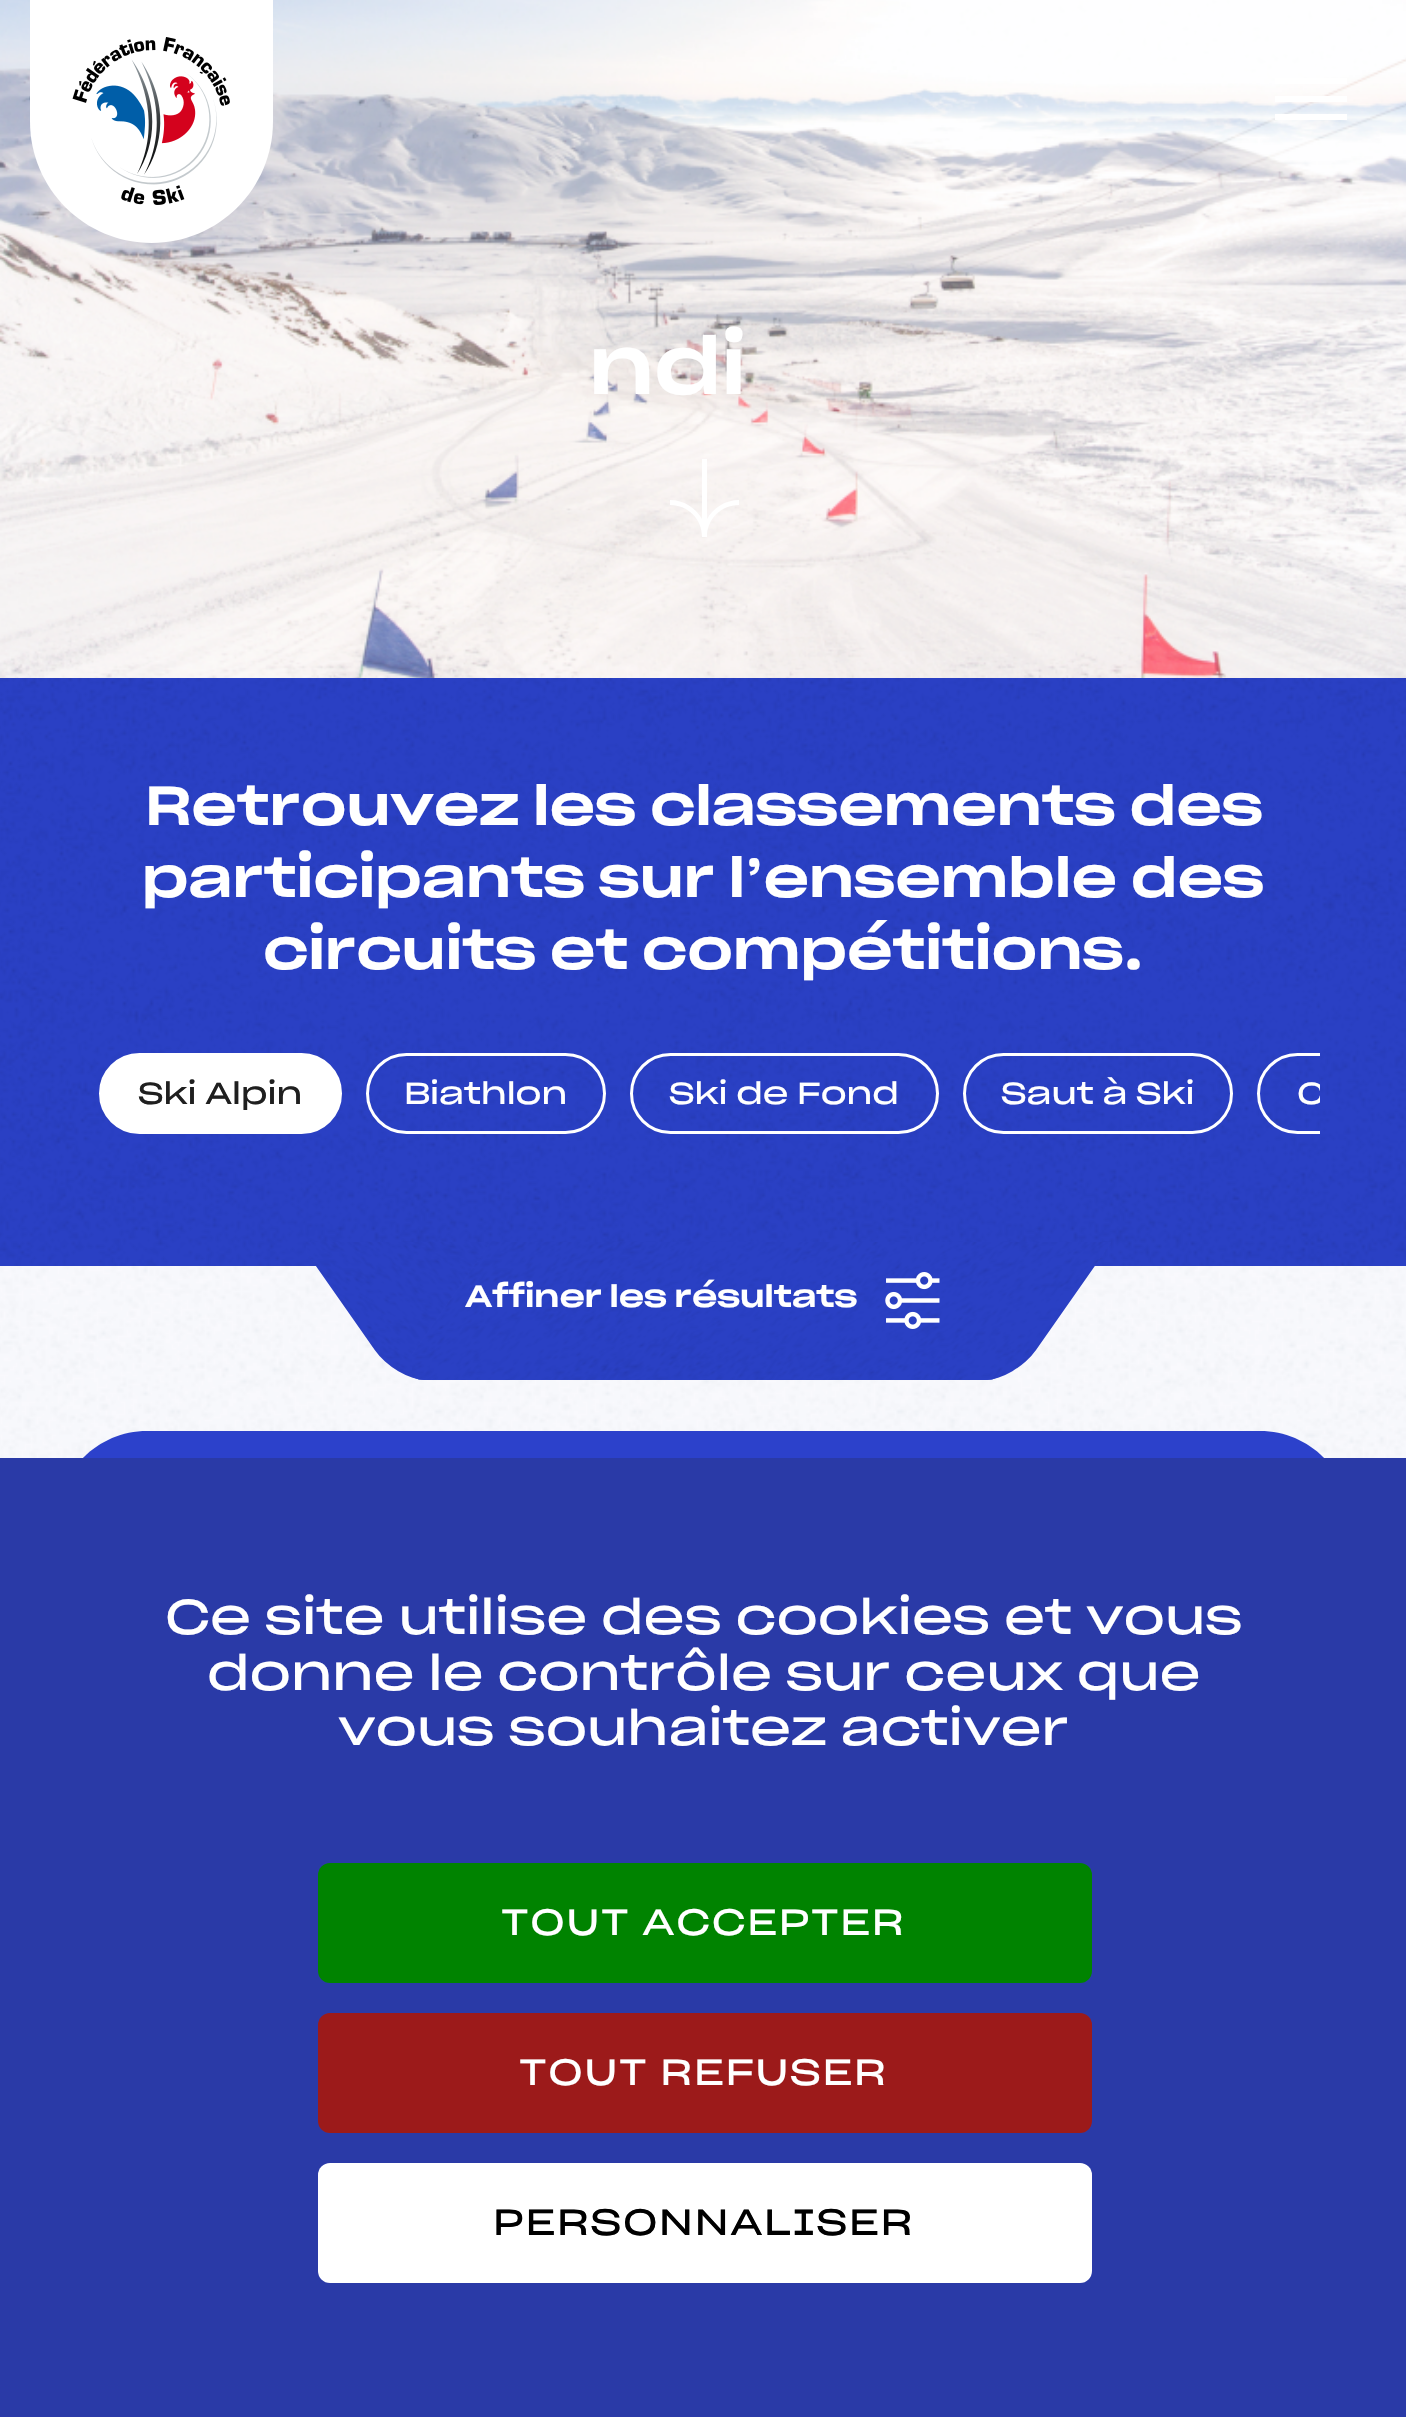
void draw(SkCanvas* canvas) {
    SkPaint paint;
    paint.setAntiAlias(true);
    auto face = [&](const char* family, int weight, float size, bool italic = false) {
        SkFontStyle style(weight, SkFontStyle::kNormal_Width,
            italic ? SkFontStyle::kItalic_Slant : SkFontStyle::kUpright_Slant);
        SkFont result(fontMgr->matchFamilyStyle(family, style), size);
        result.setSubpixel(true);
        return result;
    };
    auto write = [&](const char* s, float x, float y, const SkFont& font, SkColor color) {
        SkPaint ink(SkColor4f::FromColor(color));
        ink.setAntiAlias(true);
        canvas->drawString(s, x, y, font, ink);
    };
    auto writeSpaced = [&](const char* s, float x, float y, const SkFont& font, const SkPaint& ink, float letter, float word) {
        std::vector<SkGlyphID> glyphs(font.countText(s, strlen(s), SkTextEncoding::kUTF8));
        std::vector<float> xs(glyphs.size());
        font.textToGlyphs(s, strlen(s), SkTextEncoding::kUTF8, glyphs);
        font.getXPos(glyphs, xs, x);
        float extra = 0;
        for (size_t i = 0; i < glyphs.size(); i++) {
            xs[i] += extra;
            extra += letter + word * (glyphs[i] == font.unicharToGlyph(' '));
        }
        canvas->drawTextBlob(SkTextBlob::MakeFromPosHGlyphs(glyphs, xs, y, font), 0, 0, ink);
    };
    auto block = [&](float x, float y, float w, float h, SkColor color) {
        SkPaint ink(SkColor4f::FromColor(color));
        ink.setAntiAlias(true);
        canvas->drawRect(SkRect::MakeXYWH(x, y, w, h), ink);
    };
    auto card = [&](float x, float y, float w, float h, float radius, SkColor color) {
        SkPaint ink(SkColor4f::FromColor(color));
        ink.setAntiAlias(true);
        canvas->drawRoundRect(SkRect::MakeXYWH(x, y, w, h), radius, radius, ink);
    };
    auto paste = [&](const char* path, float x, float y, float w, float h) {
        auto image = SkImages::DeferredFromEncodedData(SkData::MakeFromFileName(path));
        canvas->drawImageRect(image, SkRect::MakeXYWH(x, y, w, h), SkSamplingOptions());
    };
    canvas->clear(SK_ColorWHITE);
    paste("pic2.png", 0, 0, 1406, 678);
    paste("pic3.png", 0, 0, 1406, 678);
    paint.setColor(SK_ColorWHITE);
    canvas->drawPath(SkPathBuilder().moveTo(30, 0).lineTo(273, 0).lineTo(273, 121.5f).cubicTo(273, 188.5f, 218.5f, 243, 151.5f, 243).cubicTo(84.5f, 243, 30, 188.5f, 30, 121.5f).close().detach(), paint);
    paste("pic1.png", 72, 37, 158, 168);
    block(1275, 78, 72, 6, SK_ColorWHITE);
    block(1275, 96, 72, 6, SK_ColorWHITE);
    block(1275, 114, 72, 6, SK_ColorWHITE);
    auto kFont1 = face("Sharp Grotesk", 500, 78);
    write("ndi", 589, 394, kFont1, SK_ColorWHITE);
    canvas->drawPath(SkPathBuilder().moveTo(739, 505).lineTo(739, 500).cubicTo(725, 500, 713, 508, 707, 519).lineTo(707, 459).lineTo(702, 459).lineTo(702, 519).cubicTo(696, 508, 684, 500, 670, 500).lineTo(670, 505).cubicTo(688, 505, 702, 519, 702, 537).lineTo(707, 537).cubicTo(707, 519, 721, 505, 739, 505).close().detach(), paint);
    paste("pic4.png", 0, 1266, 1406, 192);
    paste("pic5.png", 0, 678, 1406, 588);
    auto kFont2 = face("Sharp Grotesk", 500, 54);
    write("Retrouvez les classements des", 145, 825, kFont2, SK_ColorWHITE);
    write("participants sur l’ensemble des", 142, 897, kFont2, SK_ColorWHITE);
    write("circuits et compétitions.", 263, 969, kFont2, SK_ColorWHITE);
    canvas->drawRoundRect(SkRect::MakeXYWH(100.5f, 1054.5f, 240, 78), 39, 39, paint);
    paint.setStyle(SkPaint::kStroke_Style);
    paint.setStrokeWidth(3);
    canvas->drawRoundRect(SkRect::MakeXYWH(100.5f, 1054.5f, 240, 78), 39, 39, paint);
    auto kFont3 = face("Sharp Grotesk", 400, 30);
    write("Ski Alpin", 138, 1104, kFont3, SkColorSetRGB(31, 31, 31));
    canvas->drawRoundRect(SkRect::MakeXYWH(367.5f, 1054.5f, 237, 78), 39, 39, paint);
    write("Biathlon", 404, 1104, kFont3, SK_ColorWHITE);
    canvas->drawRoundRect(SkRect::MakeXYWH(631.5f, 1054.5f, 306, 78), 39, 39, paint);
    write("Ski de Fond", 669, 1104, kFont3, SK_ColorWHITE);
    canvas->drawRoundRect(SkRect::MakeXYWH(964.5f, 1054.5f, 267, 78), 39, 39, paint);
    write("Saut à Ski", 1001, 1104, kFont3, SK_ColorWHITE);
    canvas->save();
    canvas->clipRect(SkRect::MakeXYWH(99, 1053, 1221, 129));
    canvas->drawRoundRect(SkRect::MakeXYWH(1258.5f, 1054.5f, 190, 78), 39, 39, paint);
    write("C", 1297, 1104, kFont3, SK_ColorWHITE);
    canvas->restore();
    paste("pic6.png", 306, 1242, 692, 138);
    paste("pic7.png", 412, 1242, 699, 138);
    auto kFont4 = face("Sharp Grotesk", 500, 30);
    write("Affiner les résultats", 465, 1307, kFont4, SK_ColorWHITE);
    paste("pic8.png", 885, 1272, 55, 57);
    paint.setStyle(SkPaint::kFill_Style);
    paint.setColor(SkColorSetRGB(44, 65, 203));
    canvas->drawPath(SkPathBuilder().moveTo(147, 1431).lineTo(1260, 1431).cubicTo(1309.5f, 1431, 1350, 1471.5f, 1350, 1521).lineTo(1350, 1959).lineTo(57, 1959).lineTo(57, 1521).cubicTo(57, 1471.5f, 97.5f, 1431, 147, 1431).close().detach(), paint);
    block(0, 1458, 1406, 959, SkColorSetRGB(42, 58, 167));
    auto kFont5 = face("Sharp Grotesk", 400, 48);
    write("Ce site utilise des cookies et vous", 165, 1634, kFont5, SK_ColorWHITE);
    write("donne le contrôle sur ceux que", 207, 1690, kFont5, SK_ColorWHITE);
    write("vous souhaitez activer", 338, 1745, kFont5, SK_ColorWHITE);
    card(318, 1863, 774, 120, 12, SkColorSetRGB(0, 131, 0));
    auto kFont6 = face("Sharp Grotesk", 400, 36);
    paint.setColor(SK_ColorWHITE);
    writeSpaced("TOUT ACCEPTER", 501, 1935, kFont6, paint, 1.75f, 0);
    card(318, 2013, 774, 120, 12, SkColorSetRGB(156, 26, 26));
    writeSpaced("TOUT REFUSER", 519, 2085, kFont6, paint, 1.75f, 0);
    card(318, 2163, 774, 120, 12, SK_ColorWHITE);
    paint.setColor(SK_ColorBLACK);
    writeSpaced("PERSONNALISER", 493, 2235, kFont6, paint, 1.75f, 0);
}
